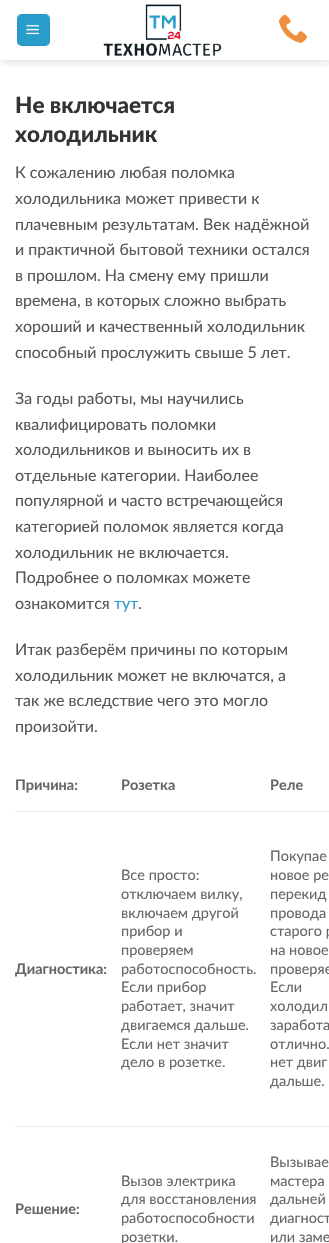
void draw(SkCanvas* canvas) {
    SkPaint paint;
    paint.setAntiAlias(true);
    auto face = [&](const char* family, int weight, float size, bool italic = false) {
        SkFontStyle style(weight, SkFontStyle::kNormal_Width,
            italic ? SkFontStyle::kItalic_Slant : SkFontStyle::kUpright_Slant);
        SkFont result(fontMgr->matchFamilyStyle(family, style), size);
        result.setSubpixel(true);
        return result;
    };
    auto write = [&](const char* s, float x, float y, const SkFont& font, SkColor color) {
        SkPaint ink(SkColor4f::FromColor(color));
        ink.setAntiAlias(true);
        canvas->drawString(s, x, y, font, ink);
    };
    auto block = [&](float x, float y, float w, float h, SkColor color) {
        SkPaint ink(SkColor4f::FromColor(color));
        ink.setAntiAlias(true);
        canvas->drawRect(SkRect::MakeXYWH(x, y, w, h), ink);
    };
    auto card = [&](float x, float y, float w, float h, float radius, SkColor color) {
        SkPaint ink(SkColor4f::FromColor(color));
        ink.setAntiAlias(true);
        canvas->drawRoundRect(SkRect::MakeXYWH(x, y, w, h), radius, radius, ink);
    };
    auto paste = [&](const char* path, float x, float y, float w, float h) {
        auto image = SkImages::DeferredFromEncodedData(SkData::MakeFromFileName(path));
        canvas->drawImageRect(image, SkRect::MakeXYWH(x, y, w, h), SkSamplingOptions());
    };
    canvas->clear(SK_ColorWHITE);
    canvas->save();
    canvas->clipRect(SkRect::MakeXYWH(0, 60, 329, 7));
    paint.setColor(SkColorSetARGB(38, 0, 0, 0));
    paint.setMaskFilter(SkMaskFilter::MakeBlur(kNormal_SkBlurStyle, 5));
    canvas->drawRect(SkRect::MakeXYWH(1, 1, 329, 60), paint);
    paint.setMaskFilter(nullptr);
    canvas->restore();
    card(17, 14, 33, 32, 5, SkColorSetRGB(40, 157, 204));
    paint.setStyle(SkPaint::kStroke_Style);
    paint.setStrokeWidth(1);
    paint.setColor(SkColorSetARGB(13, 0, 0, 0));
    canvas->drawRect(SkRect::MakeXYWH(17.5f, 14.5f, 32, 31), paint);
    paste("pic1.png", 26, 25, 13, 10);
    paste("pic2.png", 103, 4, 119, 52);
    paste("pic3.png", 278, 14, 29, 29);
    auto kFont1 = face("Lato", 900, 22.5f);
    write("Не включается", 15, 113, kFont1, SkColorSetRGB(51, 51, 51));
    write("холодильник", 15, 142, kFont1, SkColorSetRGB(51, 51, 51));
    auto kFont2 = face("Lato", 400, 16);
    write("К сожалению любая поломка", 15, 178, kFont2, SkColorSetRGB(86, 86, 86));
    write("холодильника может привести к", 15, 204, kFont2, SkColorSetRGB(86, 86, 86));
    write("плачевным результатам. Век надёжной", 15, 230, kFont2, SkColorSetRGB(86, 86, 86));
    write("и практичной бытовой техники остался", 15, 255, kFont2, SkColorSetRGB(86, 86, 86));
    write("в прошлом. На смену ему пришли", 15, 281, kFont2, SkColorSetRGB(86, 86, 86));
    write("времена, в которых сложно выбрать", 15, 306, kFont2, SkColorSetRGB(86, 86, 86));
    write("хороший и качественный холодильник", 15, 332, kFont2, SkColorSetRGB(86, 86, 86));
    write("способный прослужить свыше 5 лет.", 15, 358, kFont2, SkColorSetRGB(86, 86, 86));
    write("За годы работы, мы научились", 15, 404, kFont2, SkColorSetRGB(86, 86, 86));
    write("квалифицировать поломки", 15, 430, kFont2, SkColorSetRGB(86, 86, 86));
    write("холодильников и выносить их в", 15, 455, kFont2, SkColorSetRGB(86, 86, 86));
    write("отдельные категории. Наиболее", 15, 481, kFont2, SkColorSetRGB(86, 86, 86));
    write("популярной и часто встречающейся", 15, 506, kFont2, SkColorSetRGB(86, 86, 86));
    write("категорией поломок является когда", 15, 532, kFont2, SkColorSetRGB(86, 86, 86));
    write("холодильник не включается.", 15, 558, kFont2, SkColorSetRGB(86, 86, 86));
    write("Подробнее о поломках можете", 15, 583, kFont2, SkColorSetRGB(86, 86, 86));
    write("ознакомится", 15, 609, kFont2, SkColorSetRGB(86, 86, 86));
    write("тут", 114, 609, kFont2, SkColorSetRGB(40, 157, 204));
    write(".", 138, 609, kFont2, SkColorSetRGB(86, 86, 86));
    write("Итак разберём причины по которым", 15, 655, kFont2, SkColorSetRGB(86, 86, 86));
    write("холодильник может не включатся, а", 15, 681, kFont2, SkColorSetRGB(86, 86, 86));
    write("так же вследствие чего это могло", 15, 706, kFont2, SkColorSetRGB(86, 86, 86));
    write("произойти.", 15, 732, kFont2, SkColorSetRGB(86, 86, 86));
    block(15, 811, 314, 1, SkColorSetRGB(236, 236, 236));
    auto kFont3 = face("Lato", 700, 14.5f);
    write("Причина:", 15, 790, kFont3, SkColorSetRGB(102, 102, 102));
    write("Розетка", 121, 790, kFont3, SkColorSetRGB(102, 102, 102));
    write("Реле", 270, 790, kFont3, SkColorSetRGB(102, 102, 102));
    block(15, 1126, 314, 1, SkColorSetRGB(236, 236, 236));
    write("Диагностика:", 15, 974, kFont3, SkColorSetRGB(102, 102, 102));
    auto kFont4 = face("Lato", 400, 14.5f);
    write("Все просто:", 121, 880, kFont4, SkColorSetRGB(102, 102, 102));
    write("отключаем вилку,", 121, 899, kFont4, SkColorSetRGB(102, 102, 102));
    write("включаем другой", 121, 918, kFont4, SkColorSetRGB(102, 102, 102));
    write("прибор и", 121, 936, kFont4, SkColorSetRGB(102, 102, 102));
    write("проверяем", 121, 955, kFont4, SkColorSetRGB(102, 102, 102));
    write("работоспособность.", 121, 974, kFont4, SkColorSetRGB(102, 102, 102));
    write("Если прибор", 121, 992, kFont4, SkColorSetRGB(102, 102, 102));
    write("работает, значит", 121, 1011, kFont4, SkColorSetRGB(102, 102, 102));
    write("двигаемся дальше.", 121, 1030, kFont4, SkColorSetRGB(102, 102, 102));
    write("Если нет значит", 121, 1049, kFont4, SkColorSetRGB(102, 102, 102));
    write("дело в розетке.", 121, 1067, kFont4, SkColorSetRGB(102, 102, 102));
    write("Покупае", 270, 861, kFont4, SkColorSetRGB(102, 102, 102));
    write("новое ре", 270, 880, kFont4, SkColorSetRGB(102, 102, 102));
    write("перекид", 270, 899, kFont4, SkColorSetRGB(102, 102, 102));
    write("провода", 270, 918, kFont4, SkColorSetRGB(102, 102, 102));
    write("старого р", 270, 936, kFont4, SkColorSetRGB(102, 102, 102));
    write("на новое", 270, 955, kFont4, SkColorSetRGB(102, 102, 102));
    write("проверяе", 270, 974, kFont4, SkColorSetRGB(102, 102, 102));
    write("Если", 270, 992, kFont4, SkColorSetRGB(102, 102, 102));
    write("холодил", 270, 1011, kFont4, SkColorSetRGB(102, 102, 102));
    write("заработа", 270, 1030, kFont4, SkColorSetRGB(102, 102, 102));
    write("отлично.", 270, 1049, kFont4, SkColorSetRGB(102, 102, 102));
    write("нет двиг", 270, 1067, kFont4, SkColorSetRGB(102, 102, 102));
    write("дальше.", 270, 1086, kFont4, SkColorSetRGB(102, 102, 102));
    write("Решение:", 15, 1214, kFont3, SkColorSetRGB(102, 102, 102));
    write("Вызов электрика", 121, 1186, kFont4, SkColorSetRGB(102, 102, 102));
    write("для восстановления", 121, 1204, kFont4, SkColorSetRGB(102, 102, 102));
    write("работоспособности", 121, 1223, kFont4, SkColorSetRGB(102, 102, 102));
    write("розетки.", 121, 1242, kFont4, SkColorSetRGB(102, 102, 102));
    write("Вызывае", 270, 1167, kFont4, SkColorSetRGB(102, 102, 102));
    write("мастера", 270, 1186, kFont4, SkColorSetRGB(102, 102, 102));
    write("дальней", 270, 1204, kFont4, SkColorSetRGB(102, 102, 102));
    write("диагност", 270, 1223, kFont4, SkColorSetRGB(102, 102, 102));
    write("или заме", 270, 1242, kFont4, SkColorSetRGB(102, 102, 102));
}
